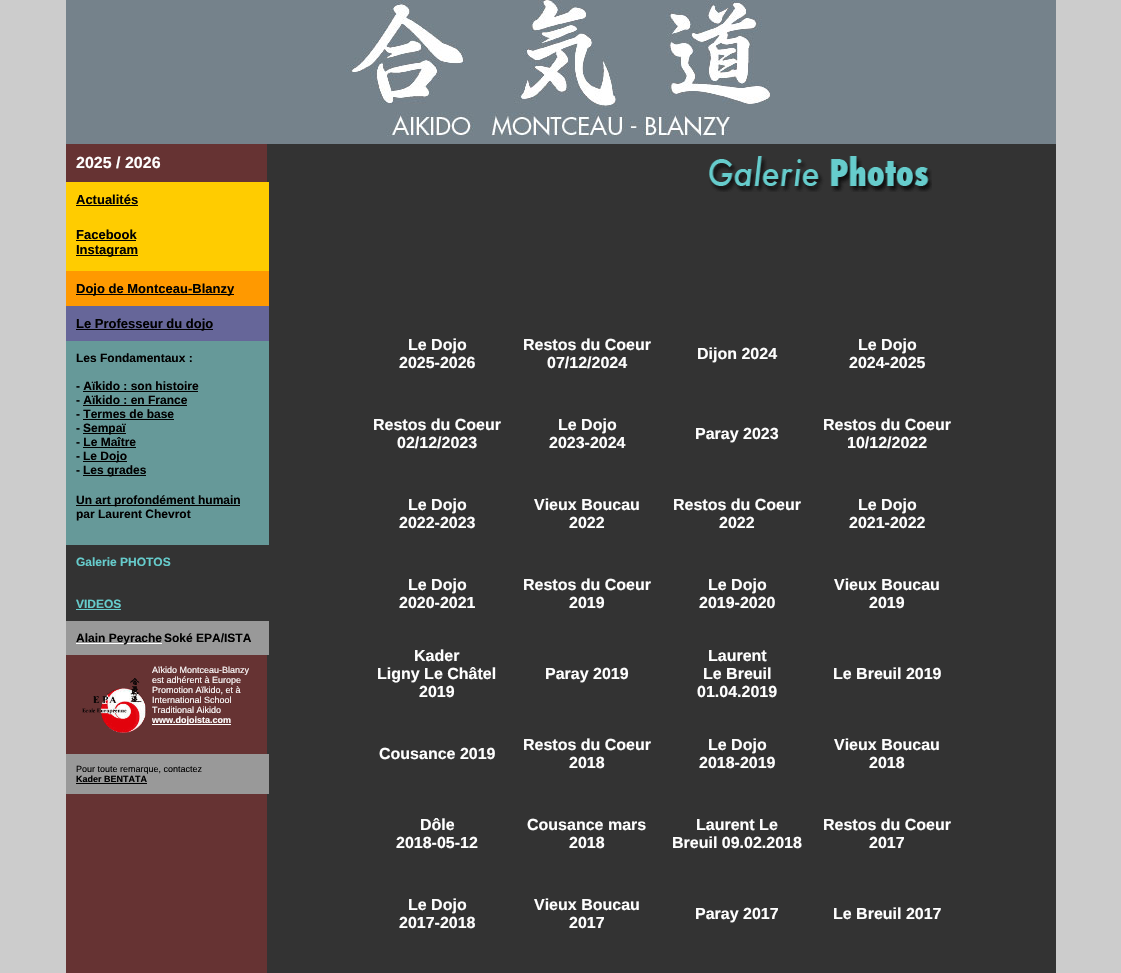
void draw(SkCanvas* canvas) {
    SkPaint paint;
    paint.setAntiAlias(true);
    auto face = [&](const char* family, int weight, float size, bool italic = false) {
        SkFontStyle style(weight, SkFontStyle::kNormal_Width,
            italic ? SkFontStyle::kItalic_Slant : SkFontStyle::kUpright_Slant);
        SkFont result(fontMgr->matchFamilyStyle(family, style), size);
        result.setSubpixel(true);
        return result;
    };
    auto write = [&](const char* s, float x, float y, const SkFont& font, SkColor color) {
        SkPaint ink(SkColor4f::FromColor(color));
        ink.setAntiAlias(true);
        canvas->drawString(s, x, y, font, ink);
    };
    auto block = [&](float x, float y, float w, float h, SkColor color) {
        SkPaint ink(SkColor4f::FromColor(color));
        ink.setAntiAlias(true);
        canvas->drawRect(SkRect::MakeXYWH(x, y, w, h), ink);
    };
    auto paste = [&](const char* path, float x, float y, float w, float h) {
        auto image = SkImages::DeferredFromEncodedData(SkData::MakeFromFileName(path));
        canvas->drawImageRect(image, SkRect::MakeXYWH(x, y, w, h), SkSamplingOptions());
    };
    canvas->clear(SkColorSetRGB(204, 204, 204));
    paste("pic1.png", 66, 144, 990, 829);
    paste("pic2.png", 66, 0, 990, 144);
    auto kFont1 = face("Liberation Sans", 700, 16);
    write("2025 / 2026", 76, 168, kFont1, SK_ColorWHITE);
    block(66, 182, 203, 89, SkColorSetRGB(255, 204, 0));
    auto kFont2 = face("Liberation Sans", 700, 13);
    write("Actualités", 76, 204, kFont2, SK_ColorBLACK);
    block(76, 205, 62, 1, SK_ColorBLACK);
    write("Facebook", 76, 239, kFont2, SK_ColorBLACK);
    block(76, 240, 60, 1, SK_ColorBLACK);
    block(76, 255, 62, 1, SK_ColorBLACK);
    write("Instagram", 76, 254, kFont2, SK_ColorBLACK);
    block(66, 271, 203, 35, SkColorSetRGB(255, 153, 0));
    block(76, 294, 158, 1, SK_ColorBLACK);
    write("Dojo de Montceau-Blanzy", 76, 293, kFont2, SK_ColorBLACK);
    block(66, 306, 203, 35, SkColorSetRGB(102, 102, 153));
    block(76, 329, 137, 1, SK_ColorBLACK);
    write("Le Professeur du dojo", 76, 328, kFont2, SK_ColorBLACK);
    block(66, 341, 203, 204, SkColorSetRGB(102, 153, 153));
    auto kFont3 = face("Liberation Sans", 700, 12);
    write("Les Fondamentaux :", 76, 362, kFont3, SK_ColorBLACK);
    write("- Aïkido : son histoire", 76, 390, kFont3, SK_ColorBLACK);
    block(83, 391, 115, 1, SK_ColorBLACK);
    write("- Aïkido : en France", 76, 404, kFont3, SK_ColorBLACK);
    block(83, 405, 104, 1, SK_ColorBLACK);
    write("- Termes de base", 76, 418, kFont3, SK_ColorBLACK);
    block(83, 419, 91, 1, SK_ColorBLACK);
    write("-", 76, 432, kFont3, SK_ColorBLACK);
    block(83, 433, 43, 1, SK_ColorBLACK);
    write("Sempaï", 83, 432, kFont3, SK_ColorBLACK);
    write("- Le Maître", 76, 446, kFont3, SK_ColorBLACK);
    block(83, 447, 53, 1, SK_ColorBLACK);
    write("-", 76, 460, kFont3, SK_ColorBLACK);
    block(83, 461, 44, 1, SK_ColorBLACK);
    write("Le Dojo", 83, 460, kFont3, SK_ColorBLACK);
    write("-", 76, 474, kFont3, SK_ColorBLACK);
    block(83, 475, 63, 1, SK_ColorBLACK);
    write("Les grades", 83, 474, kFont3, SK_ColorBLACK);
    block(76, 505, 164, 1, SK_ColorBLACK);
    write("Un art profondément humain", 76, 504, kFont3, SK_ColorBLACK);
    write("par Laurent Chevrot", 76, 518, kFont3, SK_ColorBLACK);
    block(66, 545, 201, 76, SkColorSetRGB(51, 51, 51));
    write("Galerie PHOTOS", 76, 566, kFont3, SkColorSetRGB(102, 204, 204));
    write("VIDEOS", 76, 608, kFont3, SkColorSetRGB(102, 204, 204));
    block(76, 609, 45, 1, SkColorSetRGB(102, 204, 204));
    block(66, 621, 203, 34, SkColorSetRGB(153, 153, 153));
    block(76, 643, 86, 1, SK_ColorWHITE);
    write("Alain Peyrache", 76, 642, kFont3, SK_ColorBLACK);
    write("Soké EPA/ISTA", 164, 642, kFont3, SK_ColorBLACK);
    auto kFont4 = face("Liberation Sans", 400, 9);
    write("Aïkido Montceau-Blanzy", 152, 673, kFont4, SK_ColorWHITE);
    paste("pic3.png", 82, 678, 65, 55);
    write("est adhérent à Europe", 152, 683, kFont4, SK_ColorWHITE);
    write("Promotion Aïkido, et à", 152, 693, kFont4, SK_ColorWHITE);
    write("International School", 152, 703, kFont4, SK_ColorWHITE);
    write("Traditional Aikido", 152, 713, kFont4, SK_ColorWHITE);
    block(152, 724, 79, 1, SK_ColorWHITE);
    auto kFont5 = face("Liberation Sans", 700, 9);
    write("www.dojoista.com", 152, 723, kFont5, SK_ColorWHITE);
    block(66, 754, 203, 40, SkColorSetRGB(153, 153, 153));
    write("Pour toute remarque, contactez", 76, 772, kFont4, SK_ColorBLACK);
    write("Kader BENTATA", 76, 782, kFont5, SK_ColorBLACK);
    block(76, 783, 71, 1, SK_ColorBLACK);
    paste("pic4.png", 709, 156, 223, 36);
    write("Le Dojo", 408, 350, kFont1, SK_ColorWHITE);
    write("2025-2026", 399, 368, kFont1, SK_ColorWHITE);
    write("Restos du Coeur", 523, 350, kFont1, SK_ColorWHITE);
    write("07/12/2024", 547, 368, kFont1, SK_ColorWHITE);
    write("Dijon 2024", 697, 359, kFont1, SK_ColorWHITE);
    write("Le Dojo", 858, 350, kFont1, SK_ColorWHITE);
    write("2024-2025", 849, 368, kFont1, SK_ColorWHITE);
    write("Restos du Coeur", 373, 430, kFont1, SK_ColorWHITE);
    write("02/12/2023", 397, 448, kFont1, SK_ColorWHITE);
    write("Le Dojo", 558, 430, kFont1, SK_ColorWHITE);
    write("2023-2024", 549, 448, kFont1, SK_ColorWHITE);
    write("Paray 2023", 695, 439, kFont1, SK_ColorWHITE);
    write("Restos du Coeur", 823, 430, kFont1, SK_ColorWHITE);
    write("10/12/2022", 847, 448, kFont1, SK_ColorWHITE);
    write("Le Dojo", 408, 510, kFont1, SK_ColorWHITE);
    write("2022-2023", 399, 528, kFont1, SK_ColorWHITE);
    write("Vieux Boucau", 534, 510, kFont1, SK_ColorWHITE);
    write("2022", 569, 528, kFont1, SK_ColorWHITE);
    write("Restos du Coeur", 673, 510, kFont1, SK_ColorWHITE);
    write("2022", 719, 528, kFont1, SK_ColorWHITE);
    write("Le Dojo", 858, 510, kFont1, SK_ColorWHITE);
    write("2021-2022", 849, 528, kFont1, SK_ColorWHITE);
    write("Le Dojo", 408, 590, kFont1, SK_ColorWHITE);
    write("2020-2021", 399, 608, kFont1, SK_ColorWHITE);
    write("Restos du Coeur", 523, 590, kFont1, SK_ColorWHITE);
    write("2019", 569, 608, kFont1, SK_ColorWHITE);
    write("Le Dojo", 708, 590, kFont1, SK_ColorWHITE);
    write("2019-2020", 699, 608, kFont1, SK_ColorWHITE);
    write("Vieux Boucau", 834, 590, kFont1, SK_ColorWHITE);
    write("2019", 869, 608, kFont1, SK_ColorWHITE);
    write("Kader", 414, 661, kFont1, SK_ColorWHITE);
    write("Ligny Le Châtel", 377, 679, kFont1, SK_ColorWHITE);
    write("2019", 419, 697, kFont1, SK_ColorWHITE);
    write("Paray 2019", 545, 679, kFont1, SK_ColorWHITE);
    write("Laurent", 708, 661, kFont1, SK_ColorWHITE);
    write("Le Breuil", 703, 679, kFont1, SK_ColorWHITE);
    write("01.04.2019", 697, 697, kFont1, SK_ColorWHITE);
    write("Le Breuil 2019", 833, 679, kFont1, SK_ColorWHITE);
    write("Cousance 2019", 379, 759, kFont1, SK_ColorWHITE);
    write("Restos du Coeur", 523, 750, kFont1, SK_ColorWHITE);
    write("2018", 569, 768, kFont1, SK_ColorWHITE);
    write("Le Dojo", 708, 750, kFont1, SK_ColorWHITE);
    write("2018-2019", 699, 768, kFont1, SK_ColorWHITE);
    write("Vieux Boucau", 834, 750, kFont1, SK_ColorWHITE);
    write("2018", 869, 768, kFont1, SK_ColorWHITE);
    write("Dôle", 420, 830, kFont1, SK_ColorWHITE);
    write("2018-05-12", 396, 848, kFont1, SK_ColorWHITE);
    write("Cousance mars", 527, 830, kFont1, SK_ColorWHITE);
    write("2018", 569, 848, kFont1, SK_ColorWHITE);
    write("Laurent Le", 696, 830, kFont1, SK_ColorWHITE);
    write("Breuil 09.02.2018", 672, 848, kFont1, SK_ColorWHITE);
    write("Restos du Coeur", 823, 830, kFont1, SK_ColorWHITE);
    write("2017", 869, 848, kFont1, SK_ColorWHITE);
    write("Le Dojo", 408, 910, kFont1, SK_ColorWHITE);
    write("2017-2018", 399, 928, kFont1, SK_ColorWHITE);
    write("Vieux Boucau", 534, 910, kFont1, SK_ColorWHITE);
    write("2017", 569, 928, kFont1, SK_ColorWHITE);
    write("Paray 2017", 695, 919, kFont1, SK_ColorWHITE);
    write("Le Breuil 2017", 833, 919, kFont1, SK_ColorWHITE);
}
